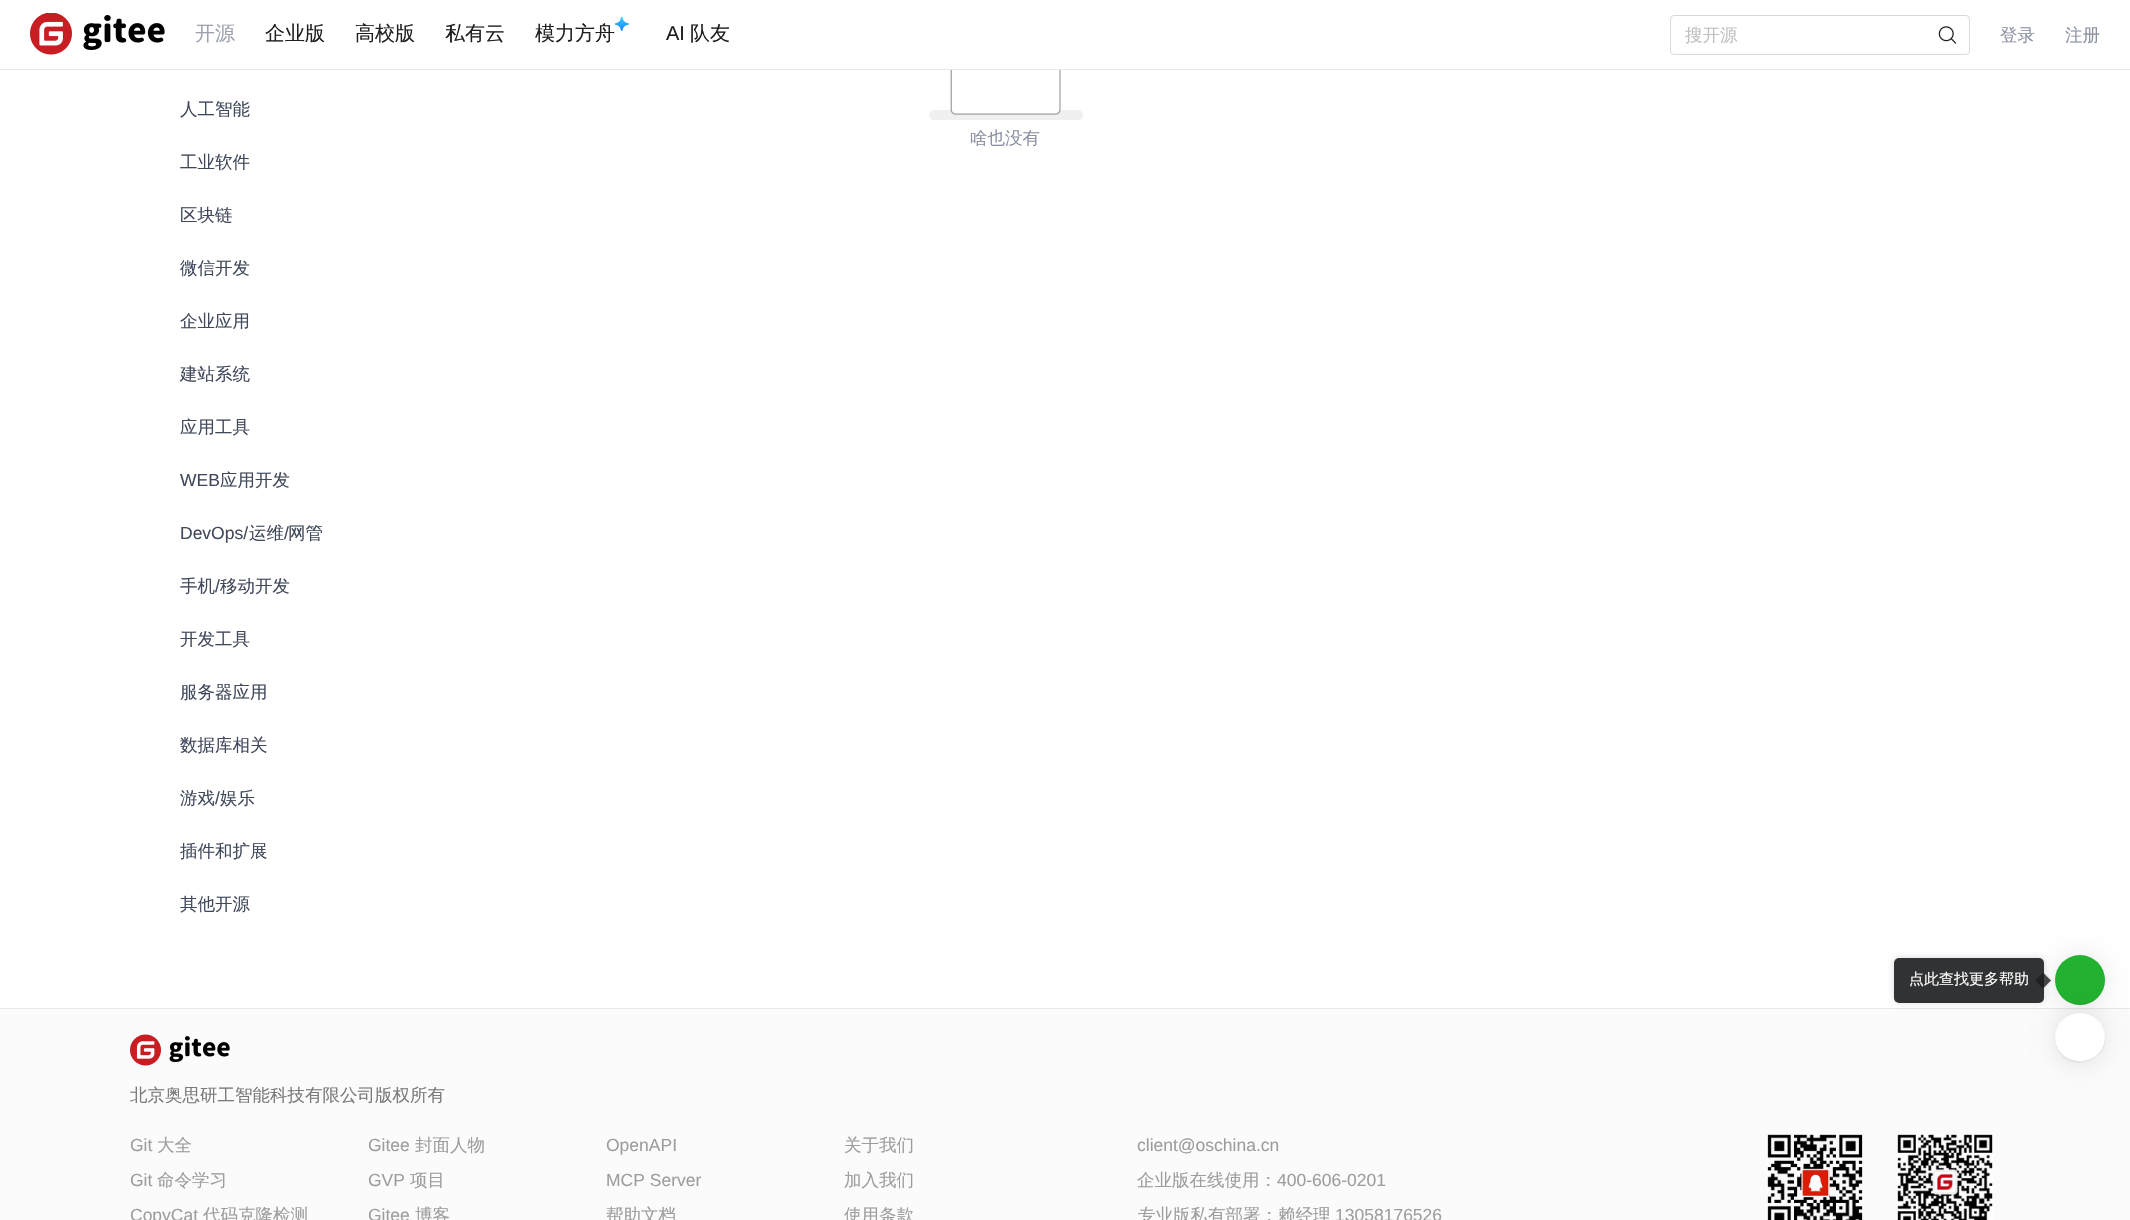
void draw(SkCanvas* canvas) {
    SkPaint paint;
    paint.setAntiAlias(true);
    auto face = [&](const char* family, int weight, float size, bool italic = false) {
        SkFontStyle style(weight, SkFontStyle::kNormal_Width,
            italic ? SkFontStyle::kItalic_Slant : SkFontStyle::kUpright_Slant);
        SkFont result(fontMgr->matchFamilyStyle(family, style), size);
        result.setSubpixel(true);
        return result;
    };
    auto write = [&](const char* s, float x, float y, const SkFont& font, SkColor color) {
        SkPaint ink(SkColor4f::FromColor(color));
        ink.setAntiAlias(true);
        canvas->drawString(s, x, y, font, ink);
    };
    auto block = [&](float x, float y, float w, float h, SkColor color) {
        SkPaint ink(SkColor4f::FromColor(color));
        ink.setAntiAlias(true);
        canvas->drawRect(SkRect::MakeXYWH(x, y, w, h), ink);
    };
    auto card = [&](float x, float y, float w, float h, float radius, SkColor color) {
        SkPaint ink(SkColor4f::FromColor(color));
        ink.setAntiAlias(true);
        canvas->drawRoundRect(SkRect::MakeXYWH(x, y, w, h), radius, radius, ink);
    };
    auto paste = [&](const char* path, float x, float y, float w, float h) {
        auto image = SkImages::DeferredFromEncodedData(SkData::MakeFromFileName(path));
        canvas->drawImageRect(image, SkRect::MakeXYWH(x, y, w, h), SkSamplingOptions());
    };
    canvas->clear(SK_ColorWHITE);
    block(0, 69, 2130, 1, SkColorSetRGB(227, 233, 237));
    paste("pic1.png", 30, 13, 135, 42);
    auto kFont1 = face("WenQuanYi Zen Hei", 500, 20);
    write("开源", 195, 40, kFont1, SkColorSetRGB(156, 163, 175));
    write("企业版", 265, 40, kFont1, SkColorSetRGB(31, 31, 31));
    write("高校版", 355, 40, kFont1, SkColorSetRGB(31, 31, 31));
    write("私有云", 445, 40, kFont1, SkColorSetRGB(31, 31, 31));
    write("模力方舟", 535, 40, kFont1, SkColorSetRGB(31, 31, 31));
    paste("pic2.png", 615, 16, 15, 15);
    auto kFont2 = face("Liberation Sans", 400, 20);
    write("AI", 666, 40, kFont2, SkColorSetRGB(31, 31, 31));
    write("队友", 690, 40, kFont1, SkColorSetRGB(31, 31, 31));
    paint.setStyle(SkPaint::kStroke_Style);
    paint.setStrokeWidth(1);
    paint.setColor(SkColorSetRGB(217, 217, 217));
    canvas->drawRoundRect(SkRect::MakeXYWH(1670.5f, 15.5f, 299, 39), 3.5f, 3.5f, paint);
    auto kFont3 = face("WenQuanYi Zen Hei", 500, 17.5f);
    write("搜开源", 1685, 41, kFont3, SkColorSetRGB(191, 191, 191));
    paste("pic3.png", 1938, 26, 19, 18);
    write("登录", 2000, 41, kFont3, SkColorSetRGB(140, 146, 164));
    write("注册", 2065, 41, kFont3, SkColorSetRGB(140, 146, 164));
    write("人工智能", 180, 115, kFont3, SkColorSetRGB(64, 72, 91));
    write("工业软件", 180, 168, kFont3, SkColorSetRGB(64, 72, 91));
    write("区块链", 180, 221, kFont3, SkColorSetRGB(64, 72, 91));
    write("微信开发", 180, 274, kFont3, SkColorSetRGB(64, 72, 91));
    write("企业应用", 180, 327, kFont3, SkColorSetRGB(64, 72, 91));
    write("建站系统", 180, 380, kFont3, SkColorSetRGB(64, 72, 91));
    write("应用工具", 180, 433, kFont3, SkColorSetRGB(64, 72, 91));
    auto kFont4 = face("Liberation Sans", 400, 17.5f);
    write("WEB", 180, 486, kFont4, SkColorSetRGB(64, 72, 91));
    write("应用开发", 220, 486, kFont3, SkColorSetRGB(64, 72, 91));
    write("DevOps/", 180, 539, kFont4, SkColorSetRGB(64, 72, 91));
    write("运维", 249, 539, kFont3, SkColorSetRGB(64, 72, 91));
    write("/", 284, 539, kFont4, SkColorSetRGB(64, 72, 91));
    write("网管", 288, 539, kFont3, SkColorSetRGB(64, 72, 91));
    write("手机", 180, 592, kFont3, SkColorSetRGB(64, 72, 91));
    write("/", 215, 592, kFont4, SkColorSetRGB(64, 72, 91));
    write("移动开发", 220, 592, kFont3, SkColorSetRGB(64, 72, 91));
    write("开发工具", 180, 645, kFont3, SkColorSetRGB(64, 72, 91));
    write("服务器应用", 180, 698, kFont3, SkColorSetRGB(64, 72, 91));
    write("数据库相关", 180, 751, kFont3, SkColorSetRGB(64, 72, 91));
    write("游戏", 180, 804, kFont3, SkColorSetRGB(64, 72, 91));
    write("/", 215, 804, kFont4, SkColorSetRGB(64, 72, 91));
    write("娱乐", 220, 804, kFont3, SkColorSetRGB(64, 72, 91));
    write("插件和扩展", 180, 857, kFont3, SkColorSetRGB(64, 72, 91));
    write("其他开源", 180, 910, kFont3, SkColorSetRGB(64, 72, 91));
    paste("pic4.png", 929, 70, 154, 50);
    write("啥也没有", 970, 144, kFont3, SkColorSetRGB(140, 146, 164));
    block(0, 1009, 2130, 211, SkColorSetRGB(251, 251, 251));
    block(0, 1008, 2130, 1, SkColorSetRGB(227, 233, 237));
    paint.setStyle(SkPaint::kFill_Style);
    paint.setColor(SkColorSetARGB(26, 0, 0, 0));
    paint.setMaskFilter(SkMaskFilter::MakeBlur(kNormal_SkBlurStyle, 12.5f));
    canvas->drawRoundRect(SkRect::MakeXYWH(2055, 956, 50, 50), 25, 25, paint);
    paint.setMaskFilter(nullptr);
    paint.setColor(SkColorSetRGB(34, 177, 48));
    canvas->drawCircle(2080, 980, 25, paint);
    paint.setColor(SkColorSetARGB(26, 0, 0, 0));
    canvas->drawPath(SkPathBuilder().moveTo(2056, 974).cubicTo(2050, 1001, 2085, 1017, 2101, 994).cubicTo(2105, 988, 2106, 981, 2104, 974).cubicTo(2107, 988, 2099, 1004, 2080, 1004).cubicTo(2061, 1004, 2053, 988, 2056, 974).close().detach(), paint);
    paint.setMaskFilter(SkMaskFilter::MakeBlur(kNormal_SkBlurStyle, 12.5f));
    canvas->drawRoundRect(SkRect::MakeXYWH(2055, 1014, 50, 50), 25, 25, paint);
    paint.setMaskFilter(nullptr);
    paint.setColor(SK_ColorWHITE);
    canvas->drawCircle(2080, 1038, 25, paint);
    canvas->save();
    canvas->clipPath(SkPathBuilder(SkPathFillType::kEvenOdd).moveTo(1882, 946).lineTo(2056, 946).lineTo(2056, 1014).lineTo(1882, 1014).close().moveTo(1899, 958).lineTo(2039, 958).cubicTo(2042, 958, 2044, 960, 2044, 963).lineTo(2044, 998).cubicTo(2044, 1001, 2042, 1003, 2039, 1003).lineTo(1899, 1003).cubicTo(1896, 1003, 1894, 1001, 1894, 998).lineTo(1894, 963).cubicTo(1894, 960, 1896, 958, 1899, 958).close().detach(), true);
    paint.setColor(SkColorSetARGB(115, 140, 146, 163));
    paint.setMaskFilter(SkMaskFilter::MakeBlur(kNormal_SkBlurStyle, 4));
    canvas->drawRoundRect(SkRect::MakeXYWH(1895, 959, 148, 42), 4, 4, paint);
    paint.setMaskFilter(nullptr);
    canvas->restore();
    card(1894, 958, 150, 45, 5, SkColorSetARGB(230, 27, 28, 29));
    auto kFont5 = face("WenQuanYi Zen Hei", 500, 15);
    write("点此查找更多帮助", 1909, 984, kFont5, SK_ColorWHITE);
    paint.setColor(SkColorSetARGB(41, 179, 179, 179));
    canvas->drawPath(SkPathBuilder().moveTo(2045, 972.5f).lineTo(2044, 973.5f).lineTo(2051, 980.5f).lineTo(2044, 987.5f).lineTo(2045, 988.5f).lineTo(2052.5f, 980.5f).close().detach(), paint);
    paint.setColor(SkColorSetARGB(207, 27, 28, 29));
    canvas->drawPath(SkPathBuilder().moveTo(2043, 972.5f).lineTo(2051, 980.5f).lineTo(2043, 988.5f).lineTo(2035, 980.5f).close().detach(), paint);
    paint.setColor(SkColorSetARGB(26, 0, 0, 0));
    canvas->drawPath(SkPathBuilder().moveTo(2105, 1034).cubicTo(2107, 1070, 2053, 1070, 2055, 1034).cubicTo(2054, 1040, 2056, 1047, 2059, 1052).cubicTo(2074, 1074, 2109, 1060, 2105, 1034).close().detach(), paint);
    paste("pic5.png", 130, 1034, 100, 32);
    write("北京奥思研工智能科技有限公司版权所有", 130, 1101, kFont3, SkColorSetRGB(122, 122, 122));
    write("Git", 130, 1151, kFont4, SkColorSetRGB(157, 157, 157));
    write("大全", 157, 1151, kFont3, SkColorSetRGB(157, 157, 157));
    write("Git", 130, 1186, kFont4, SkColorSetRGB(157, 157, 157));
    write("命令学习", 157, 1186, kFont3, SkColorSetRGB(157, 157, 157));
    write("CopyCat", 130, 1221, kFont4, SkColorSetRGB(157, 157, 157));
    write("代码克隆检测", 203, 1221, kFont3, SkColorSetRGB(157, 157, 157));
    write("Gitee", 368, 1151, kFont4, SkColorSetRGB(157, 157, 157));
    write("封面人物", 415, 1151, kFont3, SkColorSetRGB(157, 157, 157));
    write("GVP", 368, 1186, kFont4, SkColorSetRGB(157, 157, 157));
    write("项目", 410, 1186, kFont3, SkColorSetRGB(157, 157, 157));
    write("Gitee", 368, 1221, kFont4, SkColorSetRGB(157, 157, 157));
    write("博客", 415, 1221, kFont3, SkColorSetRGB(157, 157, 157));
    write("OpenAPI", 606, 1151, kFont4, SkColorSetRGB(157, 157, 157));
    write("MCP Server", 606, 1186, kFont4, SkColorSetRGB(157, 157, 157));
    write("帮助文档", 606, 1221, kFont3, SkColorSetRGB(157, 157, 157));
    write("关于我们", 844, 1151, kFont3, SkColorSetRGB(157, 157, 157));
    write("加入我们", 844, 1186, kFont3, SkColorSetRGB(157, 157, 157));
    write("使用条款", 844, 1221, kFont3, SkColorSetRGB(157, 157, 157));
    write("client@oschina.cn", 1137, 1151, kFont4, SkColorSetRGB(157, 157, 157));
    write("企业版在线使用：", 1137, 1186, kFont3, SkColorSetRGB(157, 157, 157));
    write("400-606-0201", 1277, 1186, kFont4, SkColorSetRGB(157, 157, 157));
    write("专业版私有部署：赖经理", 1138, 1221, kFont3, SkColorSetRGB(157, 157, 157));
    write("13058176526", 1335, 1221, kFont4, SkColorSetRGB(157, 157, 157));
    paste("pic6.png", 1767, 1134, 96, 86);
    paste("pic7.png", 1897, 1134, 96, 86);
}
